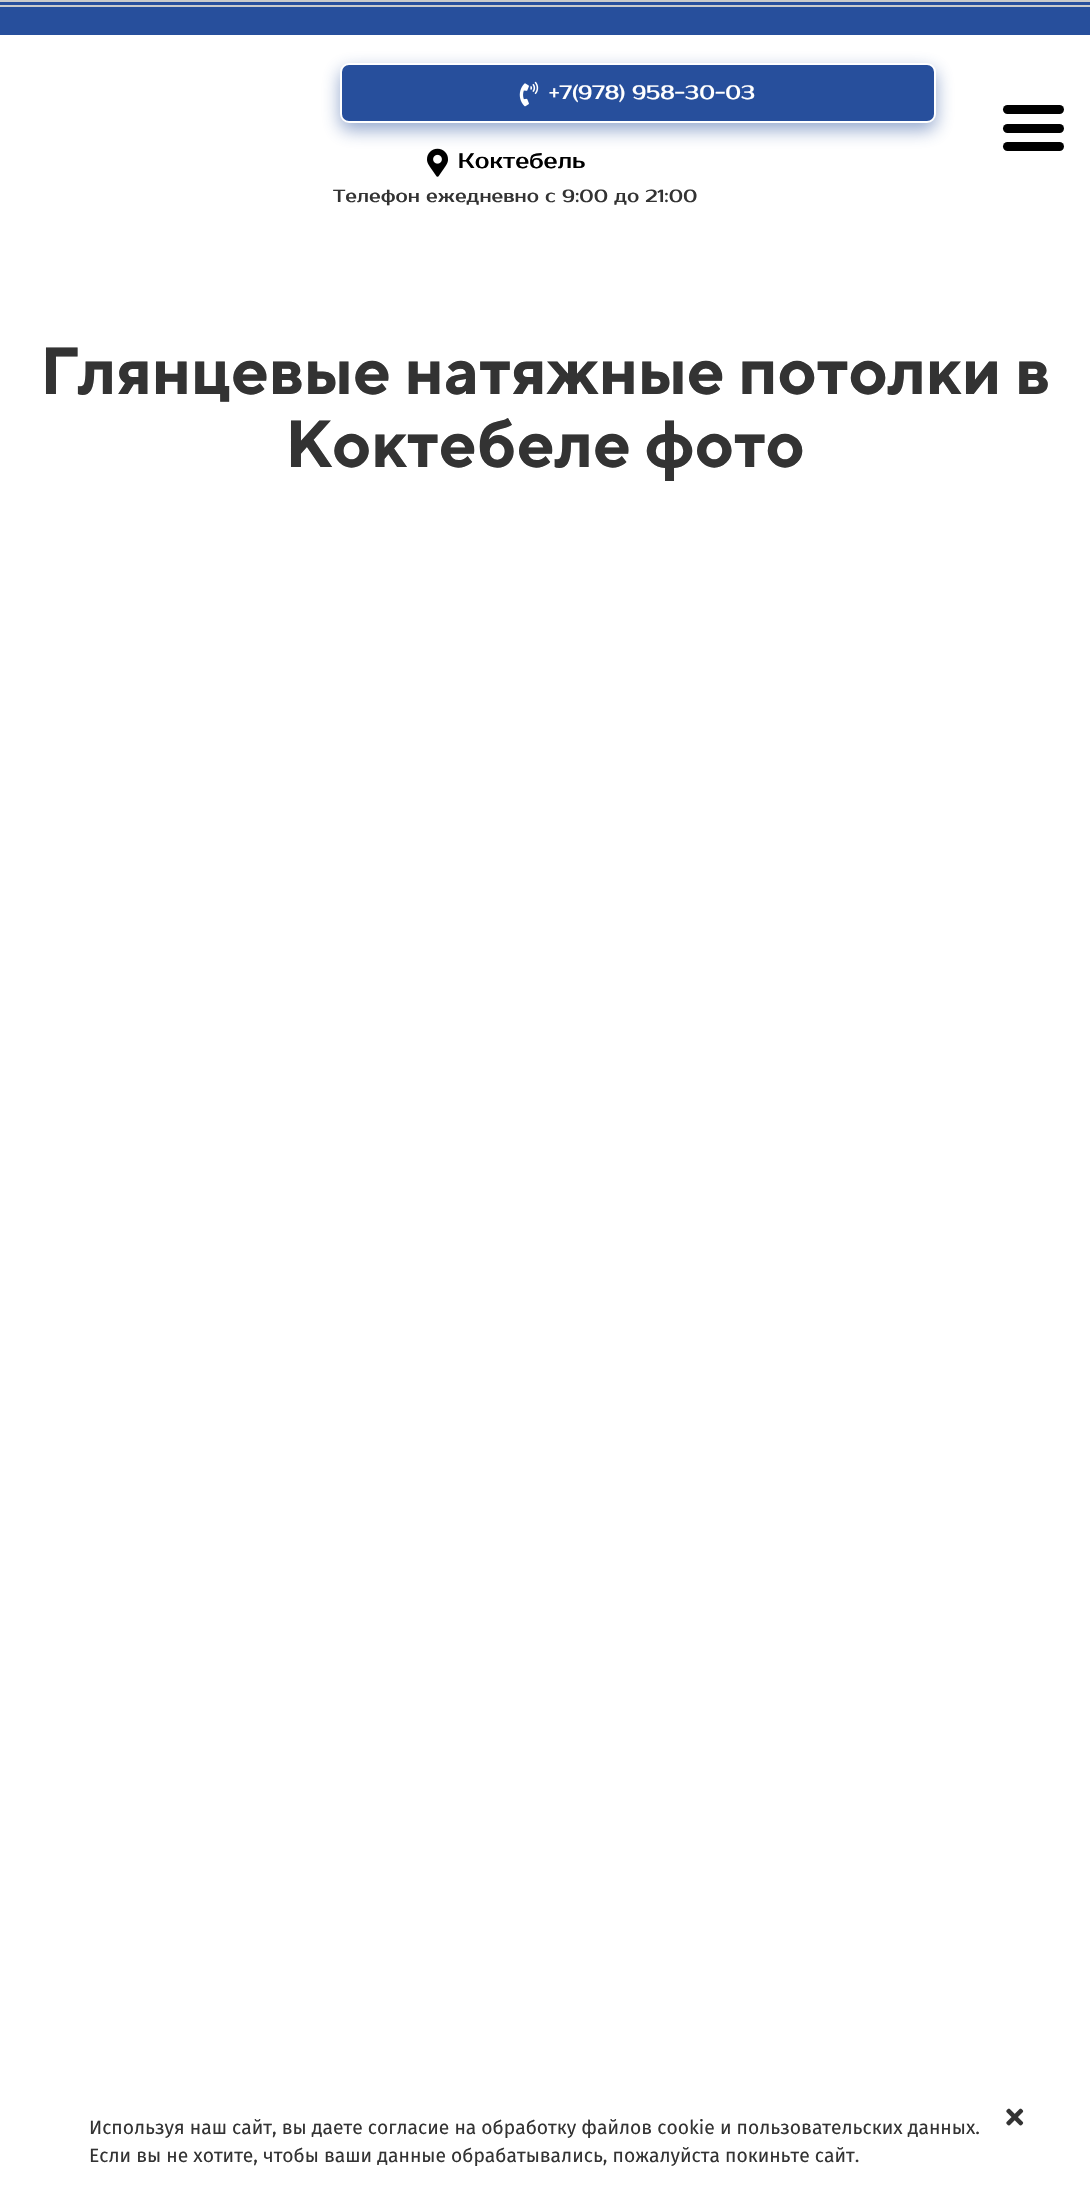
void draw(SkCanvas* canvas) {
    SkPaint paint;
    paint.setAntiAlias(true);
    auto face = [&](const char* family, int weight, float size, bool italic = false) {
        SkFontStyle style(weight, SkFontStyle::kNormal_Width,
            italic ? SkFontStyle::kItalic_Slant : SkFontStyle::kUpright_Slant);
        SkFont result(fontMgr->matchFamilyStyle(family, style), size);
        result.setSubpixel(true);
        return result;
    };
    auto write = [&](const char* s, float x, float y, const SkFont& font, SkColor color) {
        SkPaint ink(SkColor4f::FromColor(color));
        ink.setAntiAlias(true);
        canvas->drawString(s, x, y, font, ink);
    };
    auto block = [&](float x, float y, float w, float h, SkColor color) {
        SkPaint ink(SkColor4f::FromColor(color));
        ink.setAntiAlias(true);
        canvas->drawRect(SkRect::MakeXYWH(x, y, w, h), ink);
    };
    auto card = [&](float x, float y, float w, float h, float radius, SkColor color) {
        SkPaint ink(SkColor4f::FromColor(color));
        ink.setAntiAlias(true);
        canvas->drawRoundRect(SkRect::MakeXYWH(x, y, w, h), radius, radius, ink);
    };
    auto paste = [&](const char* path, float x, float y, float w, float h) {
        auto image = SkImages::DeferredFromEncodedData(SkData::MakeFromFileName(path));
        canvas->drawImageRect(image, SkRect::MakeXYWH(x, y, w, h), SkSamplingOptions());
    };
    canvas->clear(SK_ColorWHITE);
    block(0, 0, 1090, 2, SkColorSetRGB(203, 203, 203));
    block(0, 2, 1090, 33, SkColorSetRGB(39, 79, 156));
    block(0, 5, 1090, 2, SkColorSetRGB(203, 203, 203));
    paint.setColor(SkColorSetARGB(128, 39, 79, 156));
    paint.setMaskFilter(SkMaskFilter::MakeBlur(kNormal_SkBlurStyle, 9));
    canvas->drawRoundRect(SkRect::MakeXYWH(340, 70, 596, 60), 9, 9, paint);
    paint.setMaskFilter(nullptr);
    paint.setColor(SkColorSetRGB(39, 79, 156));
    canvas->drawRoundRect(SkRect::MakeXYWH(341, 64, 594, 58), 8, 8, paint);
    paint.setStyle(SkPaint::kStroke_Style);
    paint.setStrokeWidth(2);
    paint.setColor(SK_ColorWHITE);
    canvas->drawRoundRect(SkRect::MakeXYWH(341, 64, 594, 58), 8, 8, paint);
    paste("pic1.png", 519, 81, 20, 26);
    auto kFont1 = face("Prosto One", 400, 19.25f);
    write("+7(978) 958-30-03", 549, 99, kFont1, SK_ColorWHITE);
    paste("pic2.png", 427, 148, 21, 29);
    auto kFont2 = face("Prosto One", 400, 21);
    write("Коктебель", 458, 168, kFont2, SK_ColorBLACK);
    auto kFont3 = face("Prosto One", 400, 17.5f);
    write("Телефон ежедневно с 9:00 до 21:00", 333, 202, kFont3, SkColorSetRGB(51, 51, 51));
    card(1003, 105, 61, 9, 4.5f, SK_ColorBLACK);
    card(1003, 124, 61, 9, 4.5f, SK_ColorBLACK);
    card(1003, 142, 61, 9, 4.5f, SK_ColorBLACK);
    auto kFont4 = face("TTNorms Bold", 400, 66.5f);
    write("Глянцевые натяжные потолки в", 40, 394, kFont4, SkColorSetRGB(51, 51, 51));
    write("Коктебеле фото", 285, 467, kFont4, SkColorSetRGB(51, 51, 51));
    paste("pic3.png", 1006, 2108, 18, 18);
    auto kFont5 = face("Fira Sans", 400, 19.25f);
    write("Используя наш сайт, вы даете согласие на обработку файлов cookie и пользовательских данных.", 89, 2134, kFont5, SkColorSetRGB(51, 51, 51));
    write("Если вы не хотите, чтобы ваши данные обрабатывались, пожалуйста покиньте сайт.", 89, 2162, kFont5, SkColorSetRGB(51, 51, 51));
}
